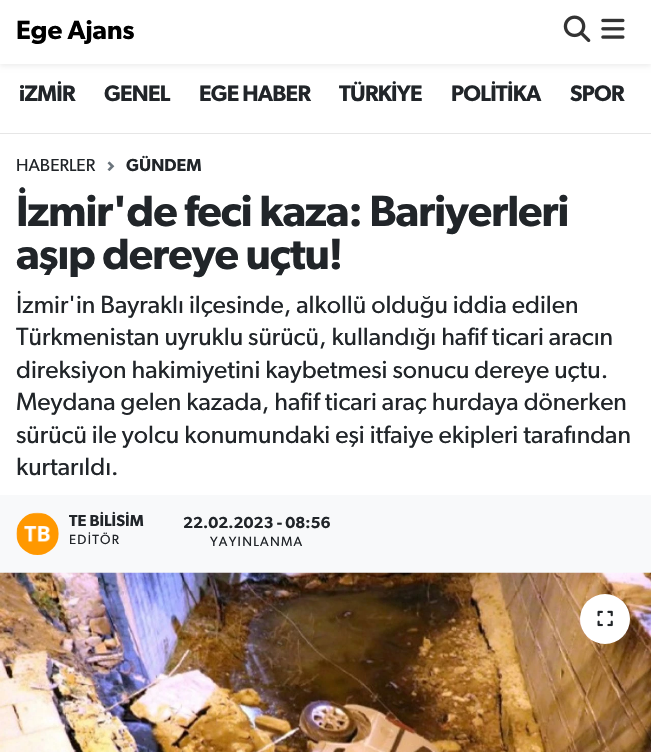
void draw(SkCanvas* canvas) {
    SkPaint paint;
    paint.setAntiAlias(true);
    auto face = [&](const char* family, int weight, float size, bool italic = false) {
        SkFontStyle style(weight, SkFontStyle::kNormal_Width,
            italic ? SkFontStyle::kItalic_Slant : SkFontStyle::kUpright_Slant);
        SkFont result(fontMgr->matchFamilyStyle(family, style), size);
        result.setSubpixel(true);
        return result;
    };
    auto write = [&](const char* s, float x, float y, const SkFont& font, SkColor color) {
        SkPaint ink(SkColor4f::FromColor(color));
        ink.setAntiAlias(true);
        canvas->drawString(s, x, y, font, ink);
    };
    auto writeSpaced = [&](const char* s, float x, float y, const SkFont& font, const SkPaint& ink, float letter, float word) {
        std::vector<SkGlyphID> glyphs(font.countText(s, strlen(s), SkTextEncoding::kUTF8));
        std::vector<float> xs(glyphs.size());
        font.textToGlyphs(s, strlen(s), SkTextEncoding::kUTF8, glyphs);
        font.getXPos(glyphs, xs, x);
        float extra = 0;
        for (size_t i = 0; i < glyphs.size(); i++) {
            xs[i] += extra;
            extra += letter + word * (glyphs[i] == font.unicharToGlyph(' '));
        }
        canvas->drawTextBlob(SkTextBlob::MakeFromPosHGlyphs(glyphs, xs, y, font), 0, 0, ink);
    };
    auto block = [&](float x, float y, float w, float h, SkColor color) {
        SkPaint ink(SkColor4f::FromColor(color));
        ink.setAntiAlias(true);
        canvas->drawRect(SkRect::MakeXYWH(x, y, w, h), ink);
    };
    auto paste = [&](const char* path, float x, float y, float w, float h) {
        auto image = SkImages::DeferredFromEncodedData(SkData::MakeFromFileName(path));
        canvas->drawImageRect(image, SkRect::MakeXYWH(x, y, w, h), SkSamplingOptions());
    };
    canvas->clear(SK_ColorWHITE);
    paint.setColor(SkColorSetARGB(18, 0, 0, 0));
    paint.setMaskFilter(SkMaskFilter::MakeBlur(kNormal_SkBlurStyle, 2.5f));
    canvas->drawRect(SkRect::MakeXYWH(0, 3, 651, 63), paint);
    paint.setMaskFilter(nullptr);
    block(0, 0, 651, 64, SK_ColorWHITE);
    auto kFont1 = face("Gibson", 600, 26.5f);
    write("Ege Ajans", 16, 39, kFont1, SK_ColorBLACK);
    paste("pic1.png", 563, 15, 28, 28);
    paste("pic2.png", 601, 18, 24, 21);
    block(0, 133, 651, 1, SkColorSetRGB(230, 230, 230));
    auto kFont2 = face("Gibson", 600, 22.5f);
    paint.setColor(SkColorSetRGB(33, 37, 41));
    writeSpaced("iZMİR", 19, 101, kFont2, paint, -0.75f, 0);
    writeSpaced("GENEL", 104, 101, kFont2, paint, -0.75f, 0);
    writeSpaced("EGE HABER", 199, 101, kFont2, paint, -0.75f, 0);
    writeSpaced("TÜRKİYE", 339, 101, kFont2, paint, -0.75f, 0);
    writeSpaced("POLİTİKA", 451, 101, kFont2, paint, -0.75f, 0);
    writeSpaced("SPOR", 570, 101, kFont2, paint, -0.75f, 0);
    auto kFont3 = face("Gibson", 400, 17.5f);
    write("HABERLER", 16, 171, kFont3, SkColorSetRGB(33, 37, 41));
    paste("pic3.png", 107, 161, 8, 10);
    auto kFont4 = face("Gibson", 600, 17.5f);
    write("GÜNDEM", 126, 171, kFont4, SkColorSetRGB(33, 37, 41));
    auto kFont5 = face("Gibson", 600, 43.75f);
    writeSpaced("İzmir'de feci kaza: Bariyerleri", 16, 226, kFont5, paint, -1, 0);
    writeSpaced("aşıp dereye uçtu!", 16, 269, kFont5, paint, -1, 0);
    auto kFont6 = face("Gibson", 400, 25);
    write("İzmir'in Bayraklı ilçesinde, alkollü olduğu iddia edilen", 16, 313, kFont6, SkColorSetRGB(33, 37, 41));
    write("Türkmenistan uyruklu sürücü, kullandığı hafif ticari aracın", 16, 345, kFont6, SkColorSetRGB(33, 37, 41));
    write("direksiyon hakimiyetini kaybetmesi sonucu dereye uçtu.", 16, 378, kFont6, SkColorSetRGB(33, 37, 41));
    write("Meydana gelen kazada, hafif ticari araç hurdaya dönerken", 16, 410, kFont6, SkColorSetRGB(33, 37, 41));
    write("sürücü ile yolcu konumundaki eşi itfaiye ekipleri tarafından", 16, 443, kFont6, SkColorSetRGB(33, 37, 41));
    write("kurtarıldı.", 16, 475, kFont6, SkColorSetRGB(33, 37, 41));
    block(0, 495, 651, 78, SkColorSetRGB(248, 249, 250));
    paste("pic4.png", 16, 512, 43, 43);
    auto kFont7 = face("Gibson", 600, 16);
    write("TE BİLİSİM", 69, 526, kFont7, SkColorSetRGB(33, 37, 41));
    auto kFont8 = face("Gibson", 400, 13.25f);
    writeSpaced("EDİTÖR", 69, 544, kFont8, paint, 1.25f, 0);
    write("22.02.2023 - 08:56", 183, 528, kFont7, SkColorSetRGB(33, 37, 41));
    writeSpaced("YAYINLANMA", 210, 546, kFont8, paint, 1.25f, 0);
    paste("pic5.png", 0, 572, 651, 180);
    paint.setColor(SK_ColorWHITE);
    canvas->drawCircle(605, 619, 25, paint);
    paste("pic6.png", 597, 610, 16, 17);
}
